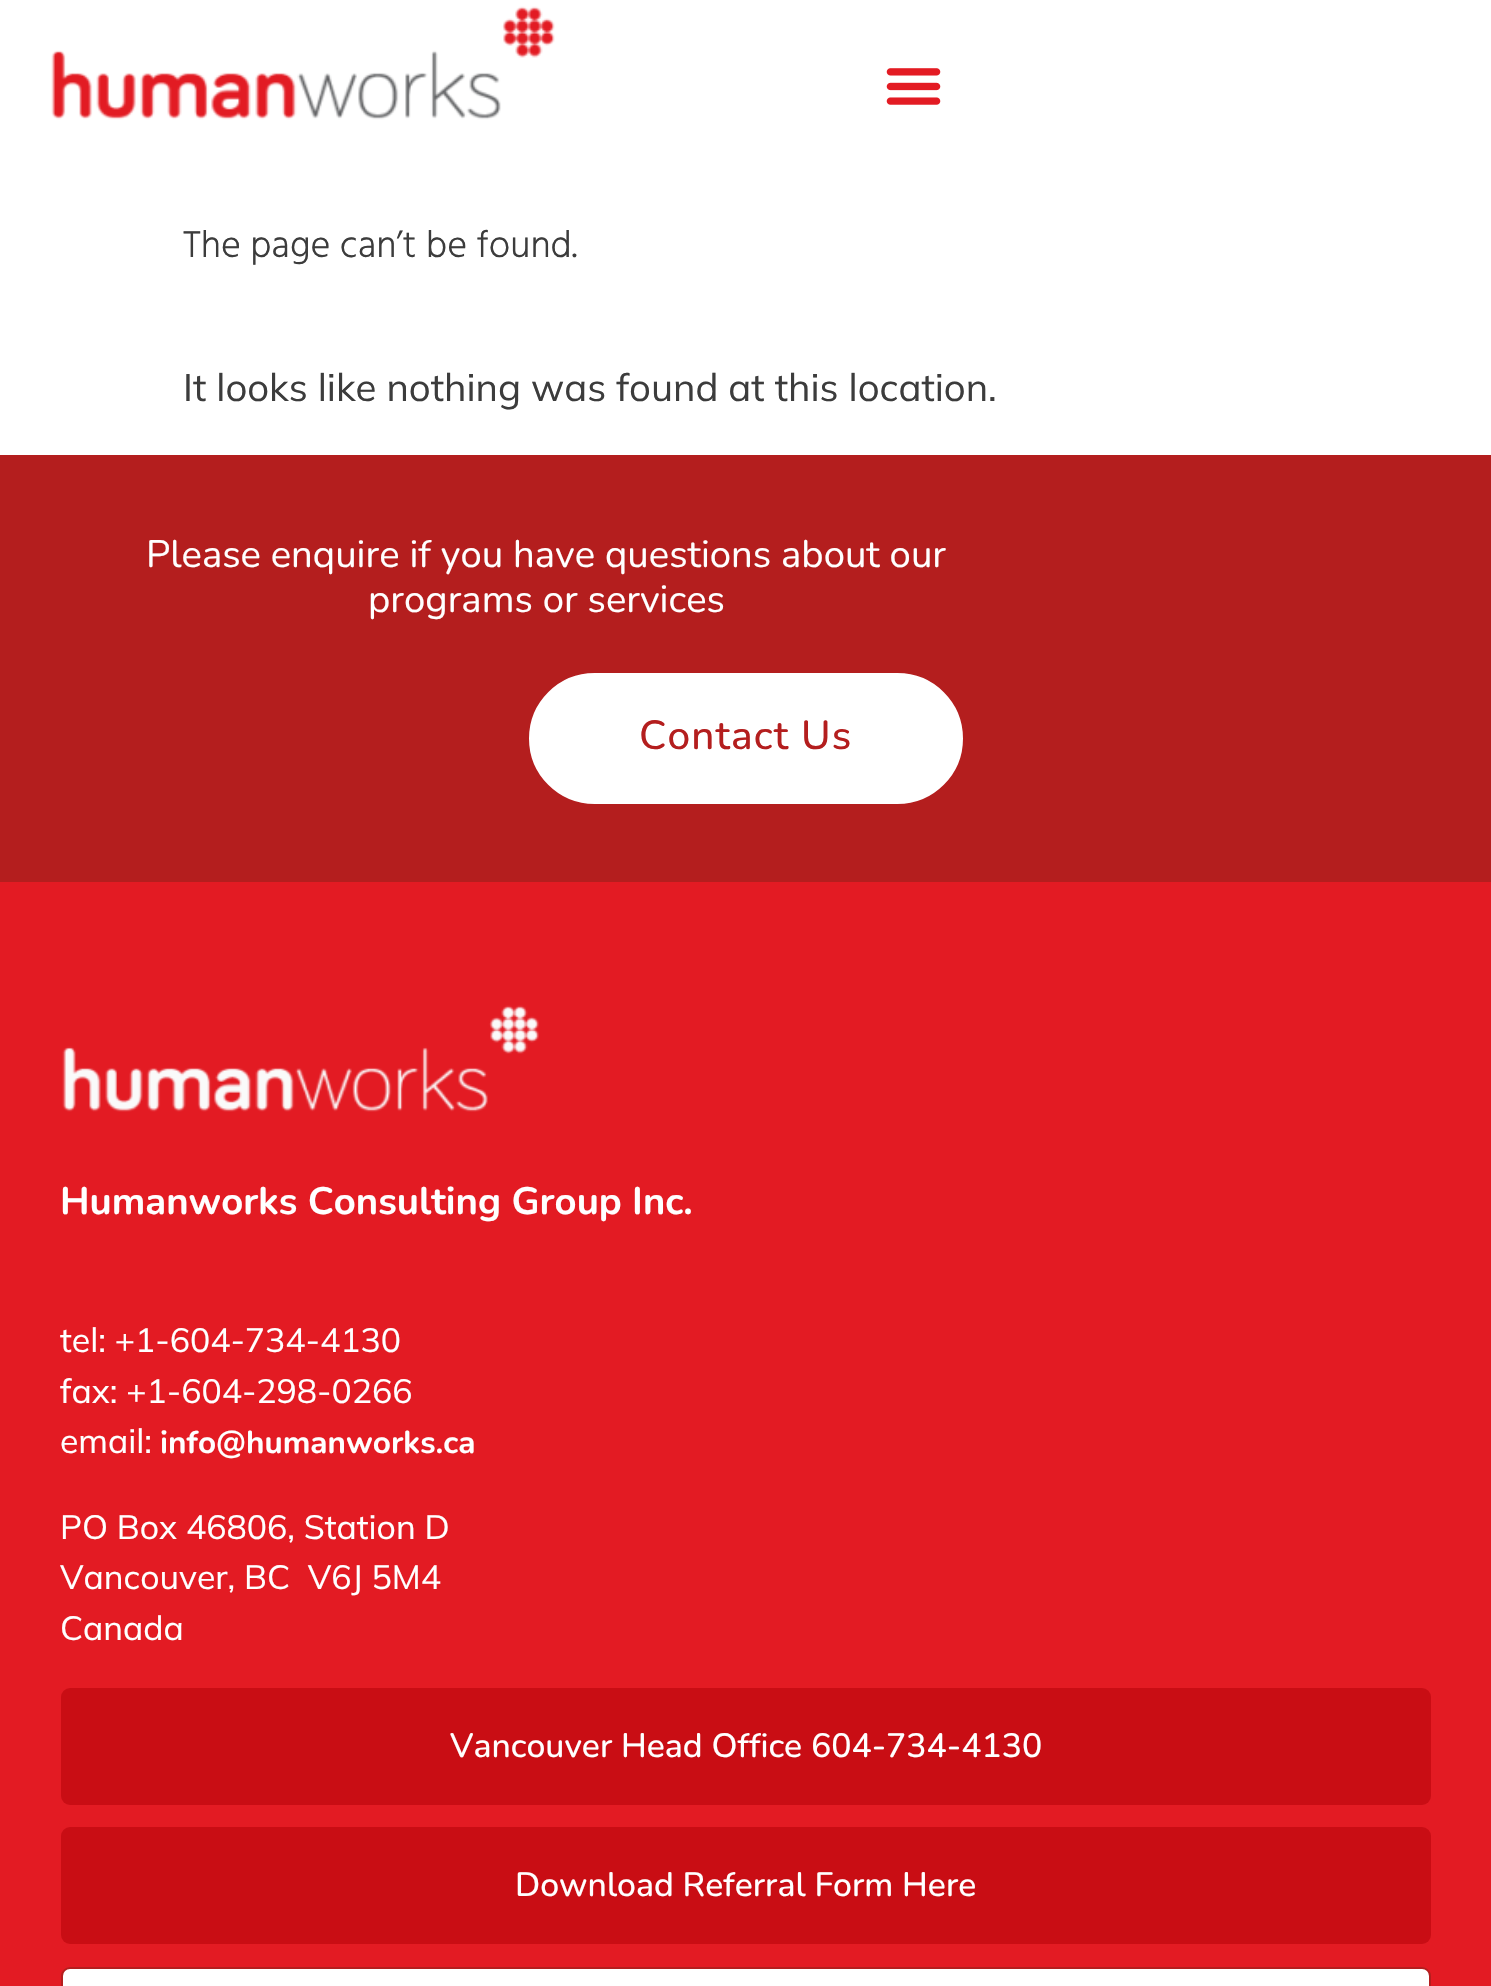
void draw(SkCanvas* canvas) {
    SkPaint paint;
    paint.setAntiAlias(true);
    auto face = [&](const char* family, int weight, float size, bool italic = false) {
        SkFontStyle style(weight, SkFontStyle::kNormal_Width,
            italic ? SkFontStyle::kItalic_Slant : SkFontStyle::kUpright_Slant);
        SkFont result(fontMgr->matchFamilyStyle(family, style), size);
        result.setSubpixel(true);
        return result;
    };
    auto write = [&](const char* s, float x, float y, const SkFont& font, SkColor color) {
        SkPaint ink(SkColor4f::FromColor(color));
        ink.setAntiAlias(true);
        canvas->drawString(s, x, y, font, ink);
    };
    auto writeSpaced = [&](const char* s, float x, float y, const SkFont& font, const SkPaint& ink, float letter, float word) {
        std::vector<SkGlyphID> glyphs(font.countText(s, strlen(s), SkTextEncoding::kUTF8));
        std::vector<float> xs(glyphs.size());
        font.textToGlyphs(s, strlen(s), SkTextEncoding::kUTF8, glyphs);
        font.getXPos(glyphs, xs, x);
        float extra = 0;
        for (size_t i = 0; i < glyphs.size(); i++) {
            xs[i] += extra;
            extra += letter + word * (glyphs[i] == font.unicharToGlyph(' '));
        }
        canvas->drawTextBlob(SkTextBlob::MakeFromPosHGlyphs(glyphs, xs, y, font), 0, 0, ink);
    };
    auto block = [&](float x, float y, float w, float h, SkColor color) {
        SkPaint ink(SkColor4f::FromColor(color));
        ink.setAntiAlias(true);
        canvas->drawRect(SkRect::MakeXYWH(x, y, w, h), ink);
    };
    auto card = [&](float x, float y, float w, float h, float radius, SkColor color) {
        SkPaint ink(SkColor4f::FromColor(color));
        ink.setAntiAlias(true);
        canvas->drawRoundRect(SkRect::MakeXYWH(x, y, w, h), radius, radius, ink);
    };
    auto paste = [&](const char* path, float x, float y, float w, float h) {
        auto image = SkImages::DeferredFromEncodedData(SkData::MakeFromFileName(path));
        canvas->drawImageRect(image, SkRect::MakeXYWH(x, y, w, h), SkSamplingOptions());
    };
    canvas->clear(SK_ColorWHITE);
    paste("pic1.png", 51, 6, 504, 114);
    paste("pic2.png", 886, 68, 55, 37);
    auto kFont1 = face("Hind", 300, 38.25f);
    write("The page can’t be found.", 183, 257, kFont1, SkColorSetRGB(60, 60, 60));
    auto kFont2 = face("Mulish", 400, 38.25f);
    write("It looks like nothing was found at this location.", 183, 401, kFont2, SkColorSetRGB(60, 60, 60));
    block(0, 455, 1491, 427, SkColorSetRGB(180, 30, 30));
    auto kFont3 = face("Nunito", 400, 38.25f);
    write("Please enquire if you have questions about our", 146, 567, kFont3, SK_ColorWHITE);
    write("programs or services", 368, 612, kFont3, SK_ColorWHITE);
    paint.setColor(SK_ColorWHITE);
    canvas->drawRoundRect(SkRect::MakeXYWH(528, 672, 436, 133), 66.5f, 66.5f, paint);
    paint.setStyle(SkPaint::kStroke_Style);
    paint.setStrokeWidth(2);
    paint.setColor(SkColorSetRGB(180, 30, 30));
    canvas->drawRoundRect(SkRect::MakeXYWH(528, 672, 436, 133), 66.5f, 66.5f, paint);
    auto kFont4 = face("Nunito", 500, 40.5f);
    paint.setStyle(SkPaint::kFill_Style);
    writeSpaced("Contact Us", 639, 749, kFont4, paint, 1.1f, 0);
    block(0, 882, 1491, 1104, SkColorSetRGB(227, 27, 35));
    paste("pic3.png", 62, 1005, 477, 107);
    auto kFont5 = face("Nunito", 700, 38.25f);
    write("Humanworks Consulting Group Inc.", 60, 1214, kFont5, SK_ColorWHITE);
    auto kFont6 = face("Mulish", 400, 33.75f);
    write("tel: +1-604-734-4130", 60, 1352, kFont6, SK_ColorWHITE);
    write("fax: +1-604-298-0266", 60, 1403, kFont6, SK_ColorWHITE);
    write("email:", 60, 1453, kFont6, SK_ColorWHITE);
    auto kFont7 = face("Nunito", 700, 31.5f);
    write("info@humanworks.ca", 160, 1453, kFont7, SK_ColorWHITE);
    write("PO Box 46806, Station D", 60, 1539, kFont6, SK_ColorWHITE);
    write("Vancouver, BC  V6J 5M4", 60, 1589, kFont6, SK_ColorWHITE);
    write("Canada", 60, 1640, kFont6, SK_ColorWHITE);
    card(61, 1688, 1370, 117, 9, SkColorSetRGB(201, 13, 20));
    auto kFont8 = face("Nunito", 500, 33.75f);
    write("Vancouver Head Office 604-734-4130", 450, 1757, kFont8, SK_ColorWHITE);
    card(61, 1827, 1370, 117, 9, SkColorSetRGB(201, 13, 20));
    write("Download Referral Form Here", 515, 1896, kFont8, SK_ColorWHITE);
    paint.setColor(SK_ColorWHITE);
    canvas->drawRoundRect(SkRect::MakeXYWH(62, 1968, 1368, 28), 8, 8, paint);
    paint.setStyle(SkPaint::kStroke_Style);
    paint.setColor(SkColorSetRGB(180, 30, 30));
    canvas->drawRoundRect(SkRect::MakeXYWH(62, 1968, 1368, 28), 8, 8, paint);
}
